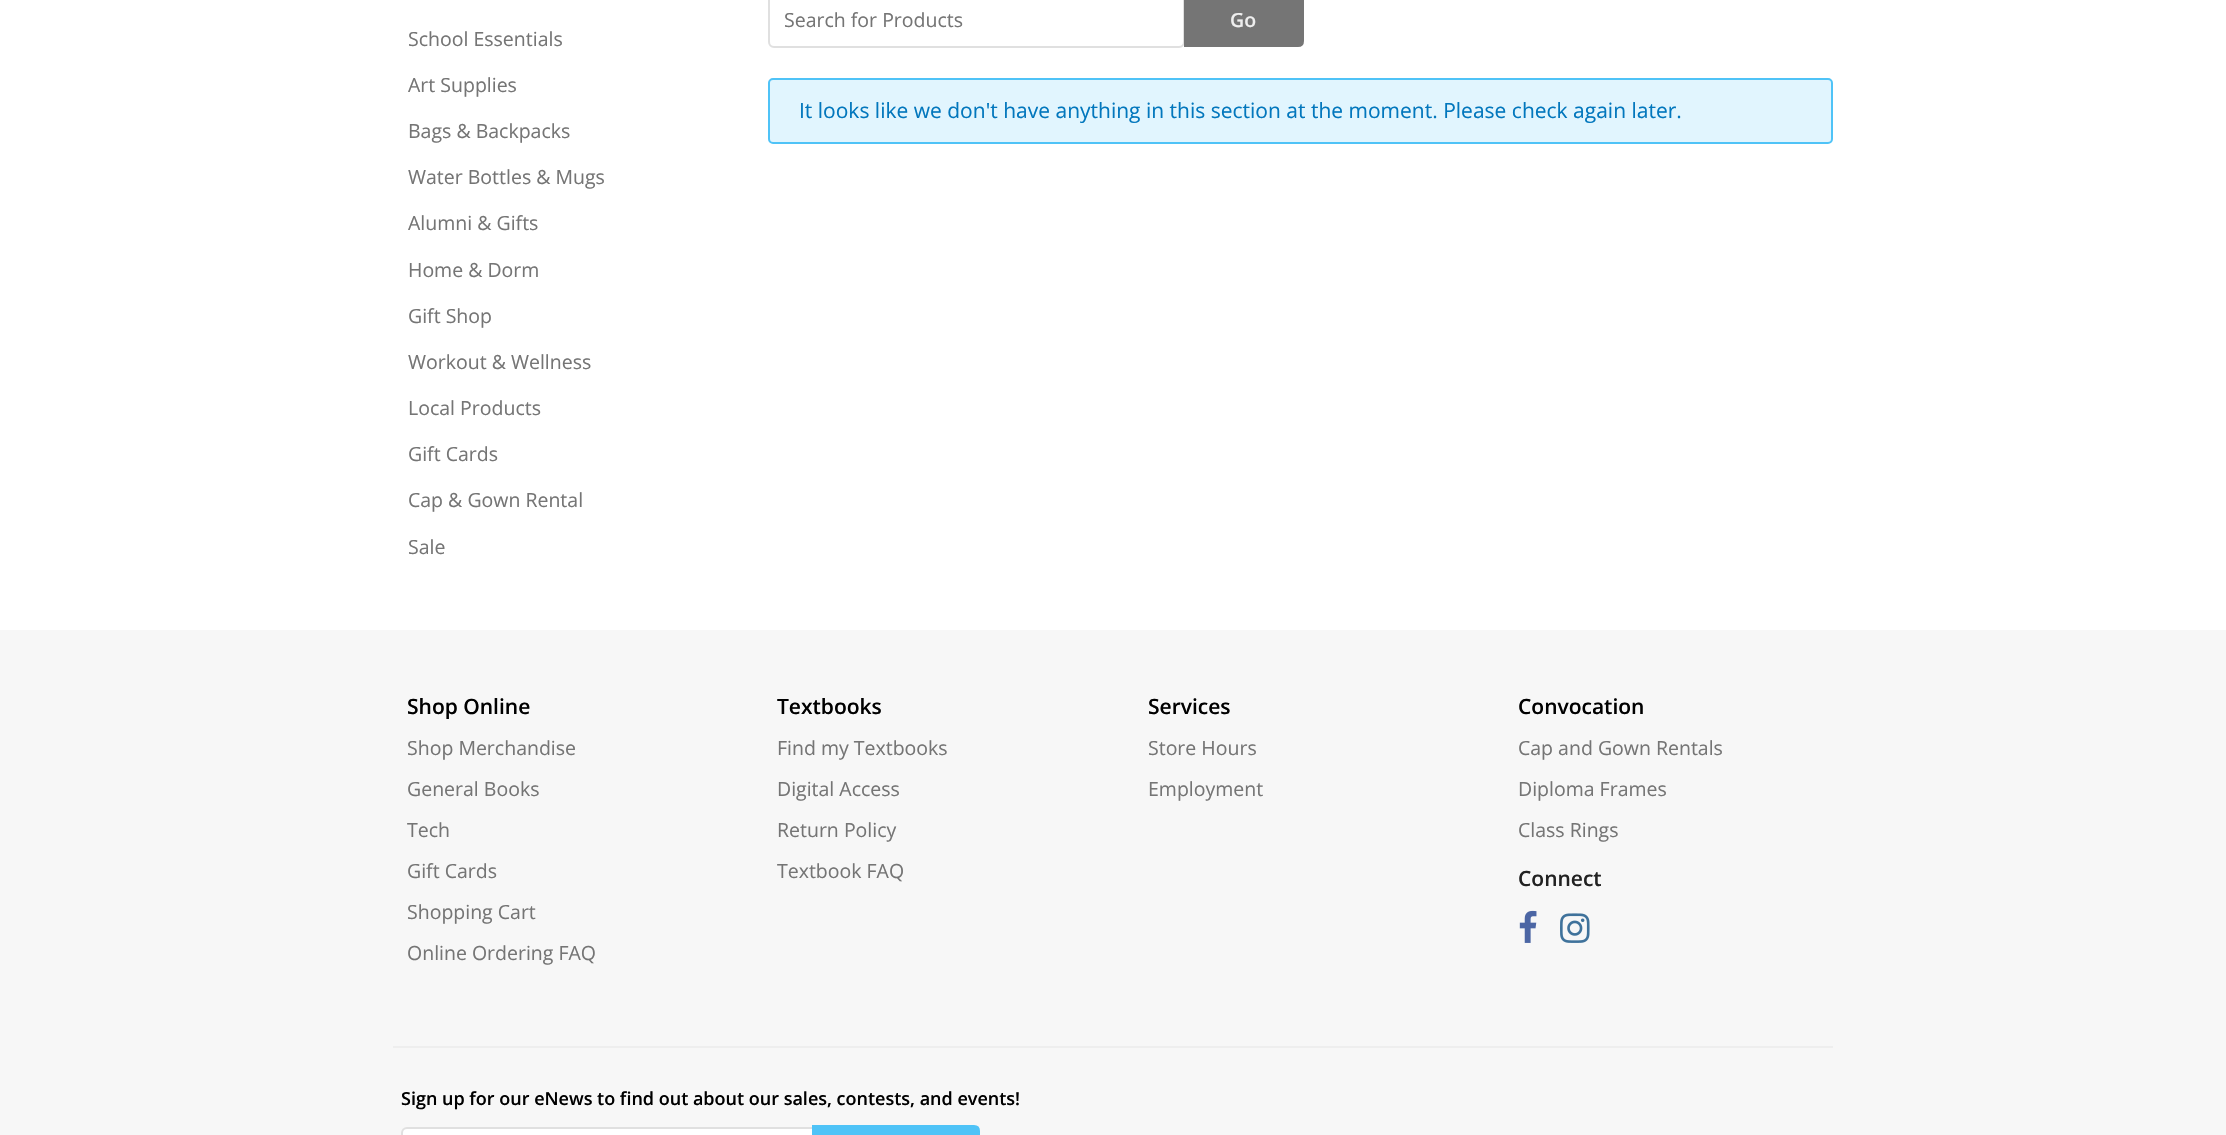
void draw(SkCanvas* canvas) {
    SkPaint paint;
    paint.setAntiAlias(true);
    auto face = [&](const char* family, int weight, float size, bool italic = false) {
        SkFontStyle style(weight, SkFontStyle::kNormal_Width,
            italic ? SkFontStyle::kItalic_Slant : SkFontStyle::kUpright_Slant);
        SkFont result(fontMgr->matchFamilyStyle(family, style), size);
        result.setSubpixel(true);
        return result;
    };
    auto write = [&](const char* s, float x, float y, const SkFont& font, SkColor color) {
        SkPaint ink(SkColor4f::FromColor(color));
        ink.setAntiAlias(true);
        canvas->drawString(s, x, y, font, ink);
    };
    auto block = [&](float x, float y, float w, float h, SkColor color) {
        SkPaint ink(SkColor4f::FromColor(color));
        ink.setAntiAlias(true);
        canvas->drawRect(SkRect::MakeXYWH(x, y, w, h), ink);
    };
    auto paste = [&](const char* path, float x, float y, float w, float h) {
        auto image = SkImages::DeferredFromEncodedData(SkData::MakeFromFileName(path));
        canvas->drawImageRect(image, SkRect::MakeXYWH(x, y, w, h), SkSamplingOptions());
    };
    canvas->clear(SK_ColorWHITE);
    auto kFont1 = face("Open Sans", 400, 19.5f);
    write("School Essentials", 408, 46, kFont1, SkColorSetRGB(117, 117, 117));
    write("Art Supplies", 408, 92, kFont1, SkColorSetRGB(117, 117, 117));
    write("Bags & Backpacks", 408, 138, kFont1, SkColorSetRGB(117, 117, 117));
    write("Water Bottles & Mugs", 408, 184, kFont1, SkColorSetRGB(117, 117, 117));
    write("Alumni & Gifts", 408, 230, kFont1, SkColorSetRGB(117, 117, 117));
    write("Home & Dorm", 408, 277, kFont1, SkColorSetRGB(117, 117, 117));
    write("Gift Shop", 408, 323, kFont1, SkColorSetRGB(117, 117, 117));
    write("Workout & Wellness", 408, 369, kFont1, SkColorSetRGB(117, 117, 117));
    write("Local Products", 408, 415, kFont1, SkColorSetRGB(117, 117, 117));
    write("Gift Cards", 408, 461, kFont1, SkColorSetRGB(117, 117, 117));
    write("Cap & Gown Rental", 408, 507, kFont1, SkColorSetRGB(117, 117, 117));
    write("Sale", 408, 554, kFont1, SkColorSetRGB(117, 117, 117));
    paint.setStyle(SkPaint::kStroke_Style);
    paint.setStrokeWidth(2);
    paint.setColor(SkColorSetRGB(224, 224, 224));
    canvas->drawRoundRect(SkRect::MakeXYWH(769, -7, 415, 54), 5, 5, paint);
    write("Search for Products", 784, 27, kFont1, SkColorSetRGB(117, 117, 117));
    paint.setStyle(SkPaint::kFill_Style);
    paint.setColor(SkColorSetRGB(117, 117, 117));
    canvas->drawPath(SkPathBuilder().moveTo(1185, -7).lineTo(1298, -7).cubicTo(1301, -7, 1303, -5, 1303, -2).lineTo(1303, 41).cubicTo(1303, 44, 1301, 46, 1298, 46).lineTo(1185, 46).close().detach(), paint);
    paint.setStyle(SkPaint::kStroke_Style);
    canvas->drawPath(SkPathBuilder().moveTo(1185, -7).lineTo(1298, -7).cubicTo(1301, -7, 1303, -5, 1303, -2).lineTo(1303, 41).cubicTo(1303, 44, 1301, 46, 1298, 46).lineTo(1185, 46).close().detach(), paint);
    auto kFont2 = face("Open Sans", 600, 19.5f);
    write("Go", 1230, 27, kFont2, SkColorSetRGB(238, 238, 238));
    paint.setStyle(SkPaint::kFill_Style);
    paint.setColor(SkColorSetRGB(225, 245, 254));
    canvas->drawRoundRect(SkRect::MakeXYWH(769, 79, 1063, 64), 4, 4, paint);
    paint.setStyle(SkPaint::kStroke_Style);
    paint.setColor(SkColorSetRGB(79, 195, 247));
    canvas->drawRoundRect(SkRect::MakeXYWH(769, 79, 1063, 64), 4, 4, paint);
    auto kFont3 = face("Open Sans", 400, 21);
    write("It looks like we don't have anything in this section at the moment. Please check again later.", 799, 118, kFont3, SkColorSetRGB(2, 119, 189));
    block(0, 630, 2226, 505, SkColorSetRGB(247, 247, 247));
    auto kFont4 = face("Open Sans", 600, 21);
    write("Shop Online", 407, 714, kFont4, SK_ColorBLACK);
    write("Shop Merchandise", 407, 755, kFont1, SkColorSetRGB(117, 117, 117));
    write("General Books", 407, 796, kFont1, SkColorSetRGB(117, 117, 117));
    write("Tech", 407, 837, kFont1, SkColorSetRGB(117, 117, 117));
    write("Gift Cards", 407, 878, kFont1, SkColorSetRGB(117, 117, 117));
    write("Shopping Cart", 407, 919, kFont1, SkColorSetRGB(117, 117, 117));
    write("Online Ordering FAQ", 407, 960, kFont1, SkColorSetRGB(117, 117, 117));
    write("Textbooks", 777, 714, kFont4, SK_ColorBLACK);
    write("Find my Textbooks", 777, 755, kFont1, SkColorSetRGB(117, 117, 117));
    write("Digital Access", 777, 796, kFont1, SkColorSetRGB(117, 117, 117));
    write("Return Policy", 777, 837, kFont1, SkColorSetRGB(117, 117, 117));
    write("Textbook FAQ", 777, 878, kFont1, SkColorSetRGB(117, 117, 117));
    write("Services", 1148, 714, kFont4, SK_ColorBLACK);
    write("Store Hours", 1148, 755, kFont1, SkColorSetRGB(117, 117, 117));
    write("Employment", 1148, 796, kFont1, SkColorSetRGB(117, 117, 117));
    write("Convocation", 1518, 714, kFont4, SK_ColorBLACK);
    write("Cap and Gown Rentals", 1518, 755, kFont1, SkColorSetRGB(117, 117, 117));
    write("Diploma Frames", 1518, 796, kFont1, SkColorSetRGB(117, 117, 117));
    write("Class Rings", 1518, 837, kFont1, SkColorSetRGB(117, 117, 117));
    write("Connect", 1518, 886, kFont4, SkColorSetRGB(34, 34, 34));
    paste("pic1.png", 1519, 910, 18, 33);
    paste("pic2.png", 1560, 913, 30, 30);
    block(393, 1046, 1440, 2, SkColorSetRGB(238, 238, 238));
    auto kFont5 = face("Open Sans", 600, 18);
    write("Sign up for our eNews to find out about our sales, contests, and events!", 401, 1105, kFont5, SK_ColorBLACK);
    paint.setStyle(SkPaint::kFill_Style);
    paint.setColor(SK_ColorWHITE);
    canvas->drawRoundRect(SkRect::MakeXYWH(402, 1128, 419, 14), 5, 5, paint);
    paint.setStyle(SkPaint::kStroke_Style);
    paint.setColor(SkColorSetRGB(224, 224, 224));
    canvas->drawRoundRect(SkRect::MakeXYWH(402, 1128, 419, 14), 5, 5, paint);
    paint.setStyle(SkPaint::kFill_Style);
    paint.setColor(SkColorSetRGB(79, 195, 247));
    canvas->drawPath(SkPathBuilder().moveTo(813, 1126).lineTo(974, 1126).cubicTo(977, 1126, 979, 1128, 979, 1131).lineTo(979, 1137).cubicTo(979, 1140, 977, 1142, 974, 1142).lineTo(813, 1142).close().detach(), paint);
    paint.setStyle(SkPaint::kStroke_Style);
    canvas->drawPath(SkPathBuilder().moveTo(813, 1126).lineTo(974, 1126).cubicTo(977, 1126, 979, 1128, 979, 1131).lineTo(979, 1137).cubicTo(979, 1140, 977, 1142, 974, 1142).lineTo(813, 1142).close().detach(), paint);
}
